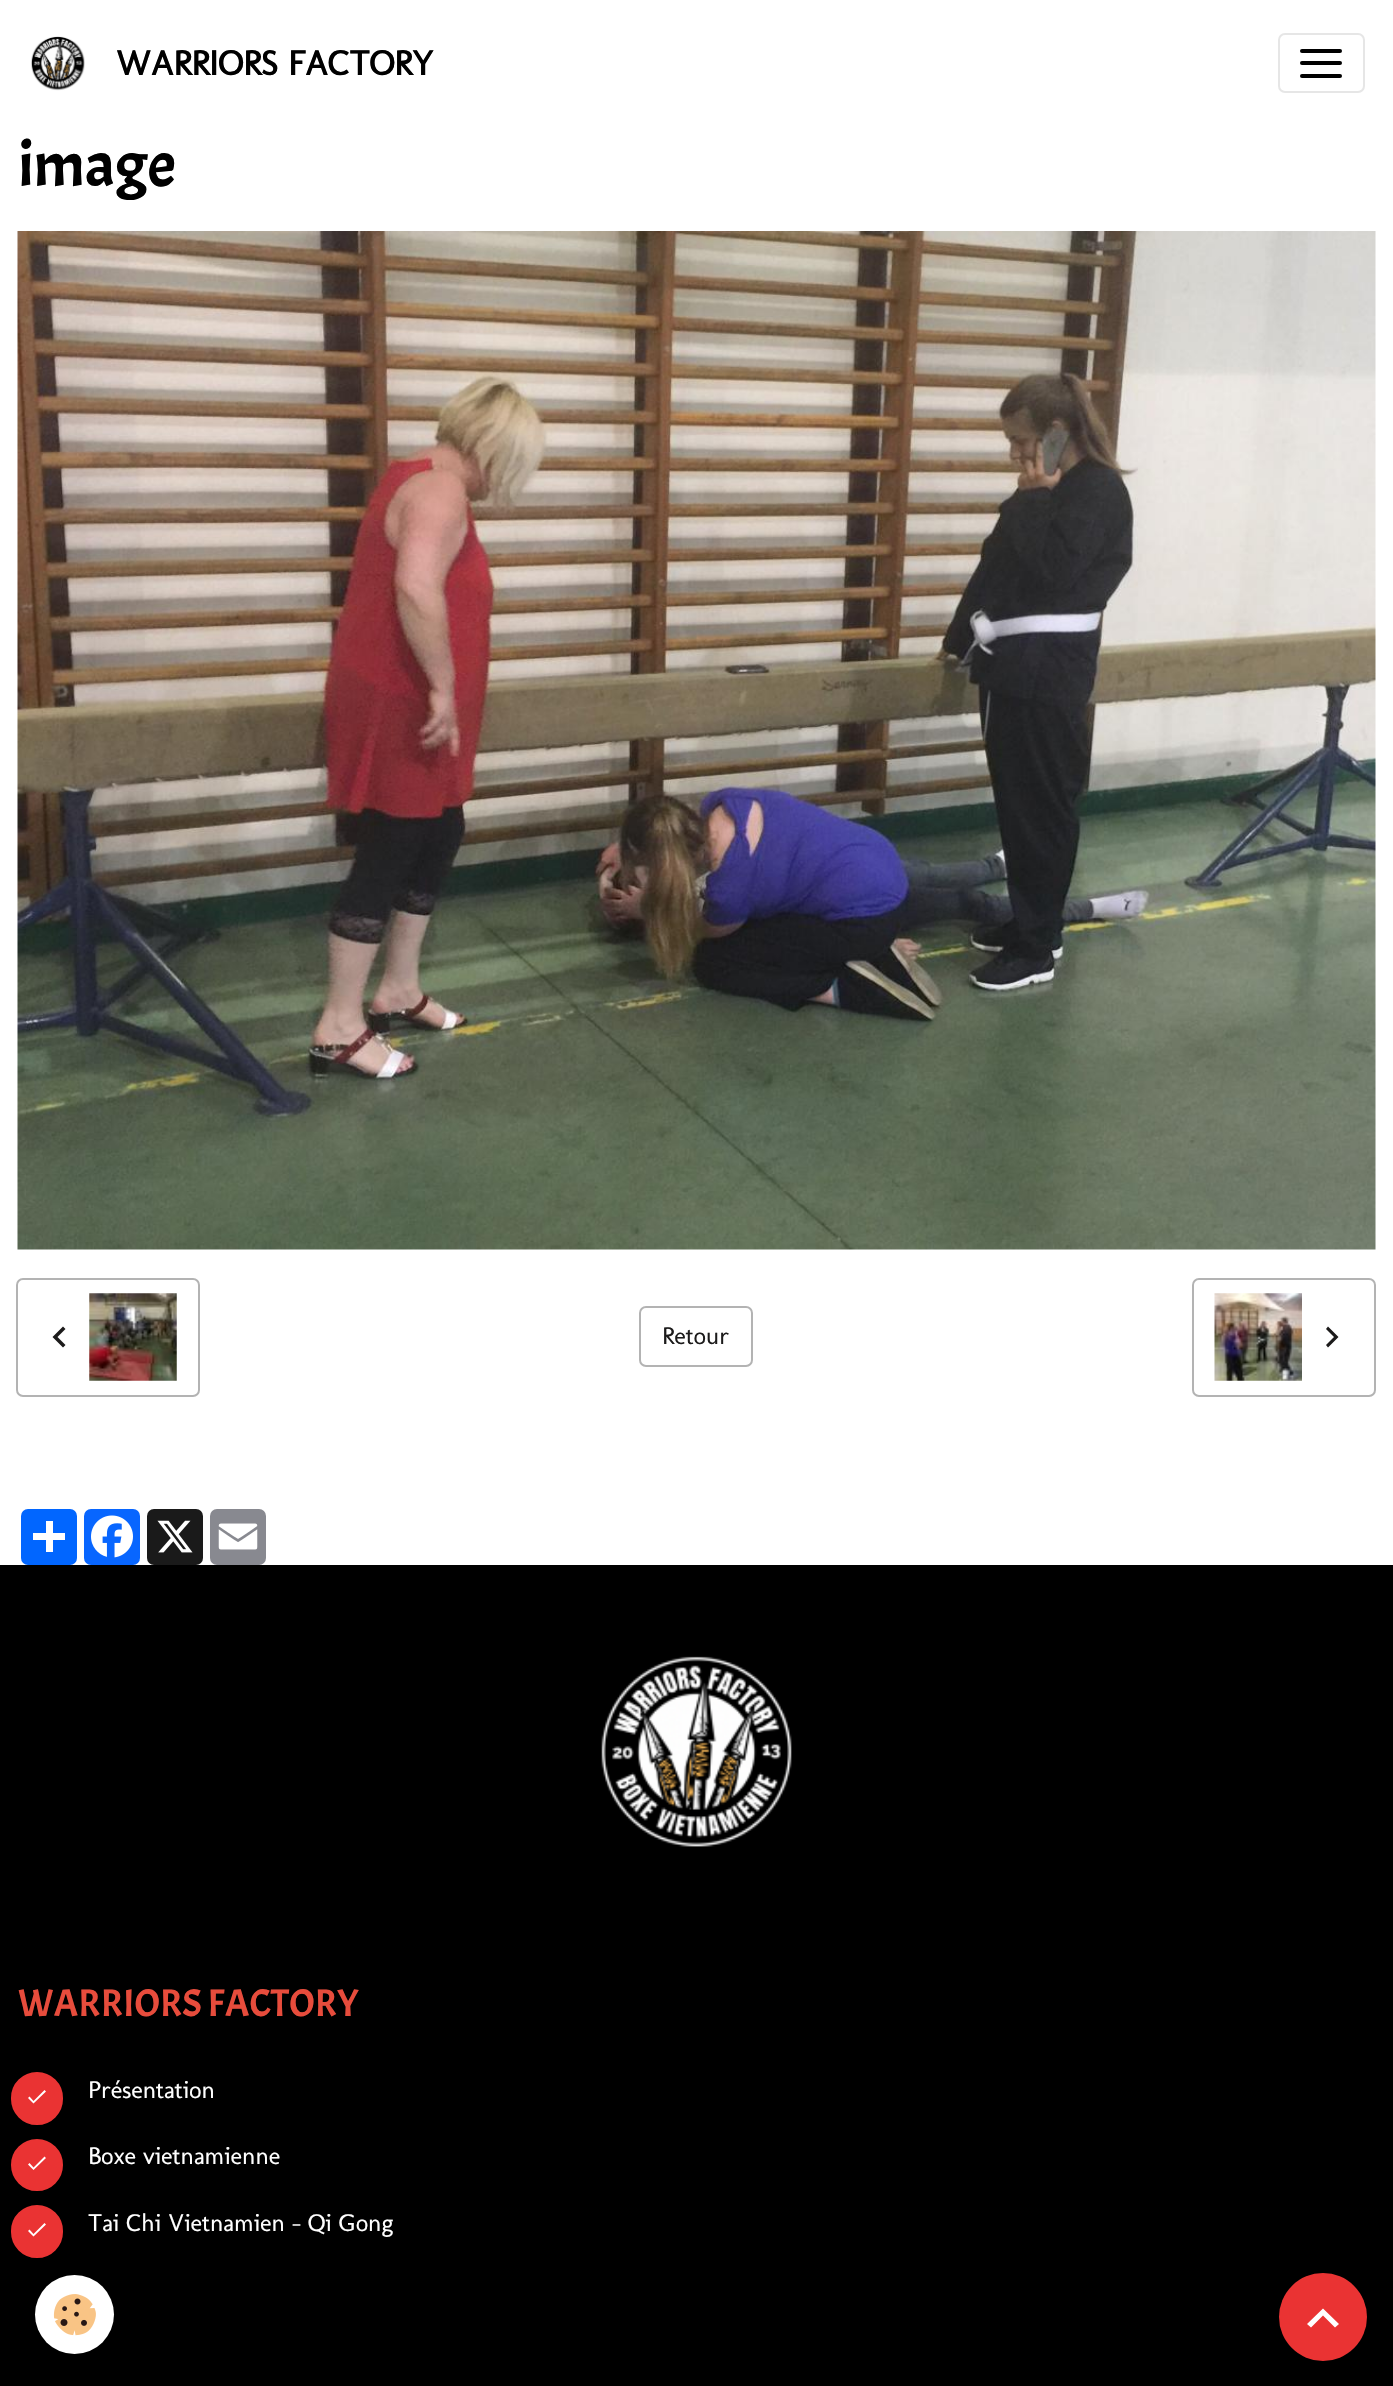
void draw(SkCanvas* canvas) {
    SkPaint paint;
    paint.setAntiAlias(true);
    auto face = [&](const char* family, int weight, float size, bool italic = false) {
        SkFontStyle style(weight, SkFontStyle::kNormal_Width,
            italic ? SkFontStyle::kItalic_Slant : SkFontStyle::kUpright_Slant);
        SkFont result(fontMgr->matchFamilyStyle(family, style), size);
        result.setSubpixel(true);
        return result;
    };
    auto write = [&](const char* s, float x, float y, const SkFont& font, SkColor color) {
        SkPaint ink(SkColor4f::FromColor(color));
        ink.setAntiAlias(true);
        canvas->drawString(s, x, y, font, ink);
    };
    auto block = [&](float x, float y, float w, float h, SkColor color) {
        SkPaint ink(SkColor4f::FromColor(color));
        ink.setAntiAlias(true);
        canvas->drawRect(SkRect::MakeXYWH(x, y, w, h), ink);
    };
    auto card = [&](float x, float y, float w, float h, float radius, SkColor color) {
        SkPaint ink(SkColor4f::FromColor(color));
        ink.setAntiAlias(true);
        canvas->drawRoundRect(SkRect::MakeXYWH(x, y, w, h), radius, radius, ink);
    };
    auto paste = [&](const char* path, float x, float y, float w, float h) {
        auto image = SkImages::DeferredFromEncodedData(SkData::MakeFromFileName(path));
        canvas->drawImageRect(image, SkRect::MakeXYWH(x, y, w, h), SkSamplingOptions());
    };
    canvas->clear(SK_ColorWHITE);
    paste("pic1.png", 31, 36, 54, 55);
    auto kFont1 = face("Molengo", 700, 35);
    write("WARRIORS FACTORY", 116, 75, kFont1, SK_ColorBLACK);
    paint.setStyle(SkPaint::kStroke_Style);
    paint.setStrokeWidth(2);
    paint.setColor(SkColorSetRGB(230, 230, 230));
    canvas->drawRoundRect(SkRect::MakeXYWH(1279, 34, 85, 58), 6, 6, paint);
    card(1300, 49, 42, 4, 2, SK_ColorBLACK);
    card(1300, 61, 42, 4, 2, SK_ColorBLACK);
    card(1300, 74, 42, 4, 2, SK_ColorBLACK);
    auto kFont2 = face("Acme", 400, 64);
    write("image", 18, 186, kFont2, SK_ColorBLACK);
    paste("pic2.png", 17, 231, 1359, 1019);
    paint.setColor(SkColorSetRGB(179, 179, 179));
    canvas->drawRoundRect(SkRect::MakeXYWH(17, 1279, 182, 117), 6, 6, paint);
    paint.setStyle(SkPaint::kFill_Style);
    paint.setColor(SkColorSetRGB(28, 27, 27));
    canvas->drawPath(SkPathBuilder().moveTo(65.5f, 1329).lineTo(57.5f, 1337).lineTo(65.5f, 1345).lineTo(63, 1347.5f).lineTo(52.5f, 1337).lineTo(63, 1326.5f).close().detach(), paint);
    paste("pic3.png", 89, 1293, 88, 88);
    paint.setStyle(SkPaint::kStroke_Style);
    paint.setColor(SkColorSetRGB(179, 179, 179));
    canvas->drawRoundRect(SkRect::MakeXYWH(640, 1307, 112, 59), 6, 6, paint);
    auto kFont3 = face("Molengo", 400, 24.5f);
    write("Retour", 662, 1344, kFont3, SkColorSetRGB(28, 27, 27));
    canvas->drawRoundRect(SkRect::MakeXYWH(1193, 1279, 182, 117), 6, 6, paint);
    paste("pic4.png", 1214, 1293, 88, 88);
    paint.setStyle(SkPaint::kFill_Style);
    paint.setColor(SkColorSetRGB(28, 27, 27));
    canvas->drawPath(SkPathBuilder().moveTo(1328, 1326.5f).lineTo(1338.5f, 1337).lineTo(1328, 1347.5f).lineTo(1326, 1345).lineTo(1334, 1337).lineTo(1326, 1329).close().detach(), paint);
    card(21, 1509, 56, 56, 7, SkColorSetRGB(1, 102, 255));
    block(46, 1521, 7, 31, SK_ColorWHITE);
    block(33, 1533, 32, 7, SK_ColorWHITE);
    card(84, 1509, 56, 56, 7, SkColorSetRGB(8, 102, 255));
    paste("pic5.png", 91, 1515, 42, 43);
    card(147, 1509, 56, 56, 7, SkColorSetRGB(26, 26, 26));
    paste("pic6.png", 157, 1520, 36, 33);
    card(210, 1509, 56, 56, 7, SkColorSetRGB(136, 137, 144));
    paste("pic7.png", 218, 1523, 40, 27);
    block(0, 1565, 1393, 821, SK_ColorBLACK);
    paste("pic8.png", 601, 1656, 191, 191);
    auto kFont4 = face("Acme", 400, 38.5f);
    write("WARRIORS FACTORY", 18, 2016, kFont4, SkColorSetRGB(231, 76, 60));
    paint.setColor(SkColorSetRGB(234, 51, 51));
    canvas->drawRoundRect(SkRect::MakeXYWH(12, 2073, 50, 51), 25, 25, paint);
    paint.setStyle(SkPaint::kStroke_Style);
    canvas->drawRoundRect(SkRect::MakeXYWH(12, 2073, 50, 51), 25, 25, paint);
    paint.setStyle(SkPaint::kFill_Style);
    paint.setColor(SK_ColorWHITE);
    canvas->drawPath(SkPathBuilder().moveTo(33.5f, 2101).lineTo(44.5f, 2090).lineTo(46, 2091.5f).lineTo(33.5f, 2103.5f).lineTo(28, 2098).lineTo(29.5f, 2096.5f).close().detach(), paint);
    write("Présentation", 88, 2098, kFont3, SK_ColorWHITE);
    paint.setColor(SkColorSetRGB(234, 51, 51));
    canvas->drawCircle(37, 2165, 25, paint);
    paint.setStyle(SkPaint::kStroke_Style);
    canvas->drawCircle(37, 2165, 25, paint);
    paint.setStyle(SkPaint::kFill_Style);
    paint.setColor(SK_ColorWHITE);
    canvas->drawPath(SkPathBuilder().moveTo(33.5f, 2167.5f).lineTo(44.5f, 2156.5f).lineTo(46, 2158).lineTo(33.5f, 2170).lineTo(28, 2164.5f).lineTo(29.5f, 2163).close().detach(), paint);
    write("Boxe vietnamienne", 88, 2164, kFont3, SK_ColorWHITE);
    paint.setColor(SkColorSetRGB(234, 51, 51));
    canvas->drawRoundRect(SkRect::MakeXYWH(12, 2206, 50, 51), 25, 25, paint);
    paint.setStyle(SkPaint::kStroke_Style);
    canvas->drawRoundRect(SkRect::MakeXYWH(12, 2206, 50, 51), 25, 25, paint);
    paint.setStyle(SkPaint::kFill_Style);
    paint.setColor(SK_ColorWHITE);
    canvas->drawPath(SkPathBuilder().moveTo(33.5f, 2234).lineTo(44.5f, 2223).lineTo(46, 2224.5f).lineTo(33.5f, 2236.5f).lineTo(28, 2231).lineTo(29.5f, 2229.5f).close().detach(), paint);
    write("Tai Chi Vietnamien - Qi Gong", 88, 2231, kFont3, SK_ColorWHITE);
    canvas->drawCircle(74.5f, 2314.5f, 39.5f, paint);
    paste("pic9.png", 53, 2294, 43, 42);
    paint.setColor(SkColorSetRGB(234, 51, 51));
    canvas->drawCircle(1323, 2317, 44, paint);
    paint.setColor(SK_ColorWHITE);
    canvas->drawPath(SkPathBuilder().moveTo(1323, 2308.5f).lineTo(1339, 2324).lineTo(1335, 2327.5f).lineTo(1323, 2315.5f).lineTo(1311, 2327.5f).lineTo(1307, 2324).close().detach(), paint);
}
